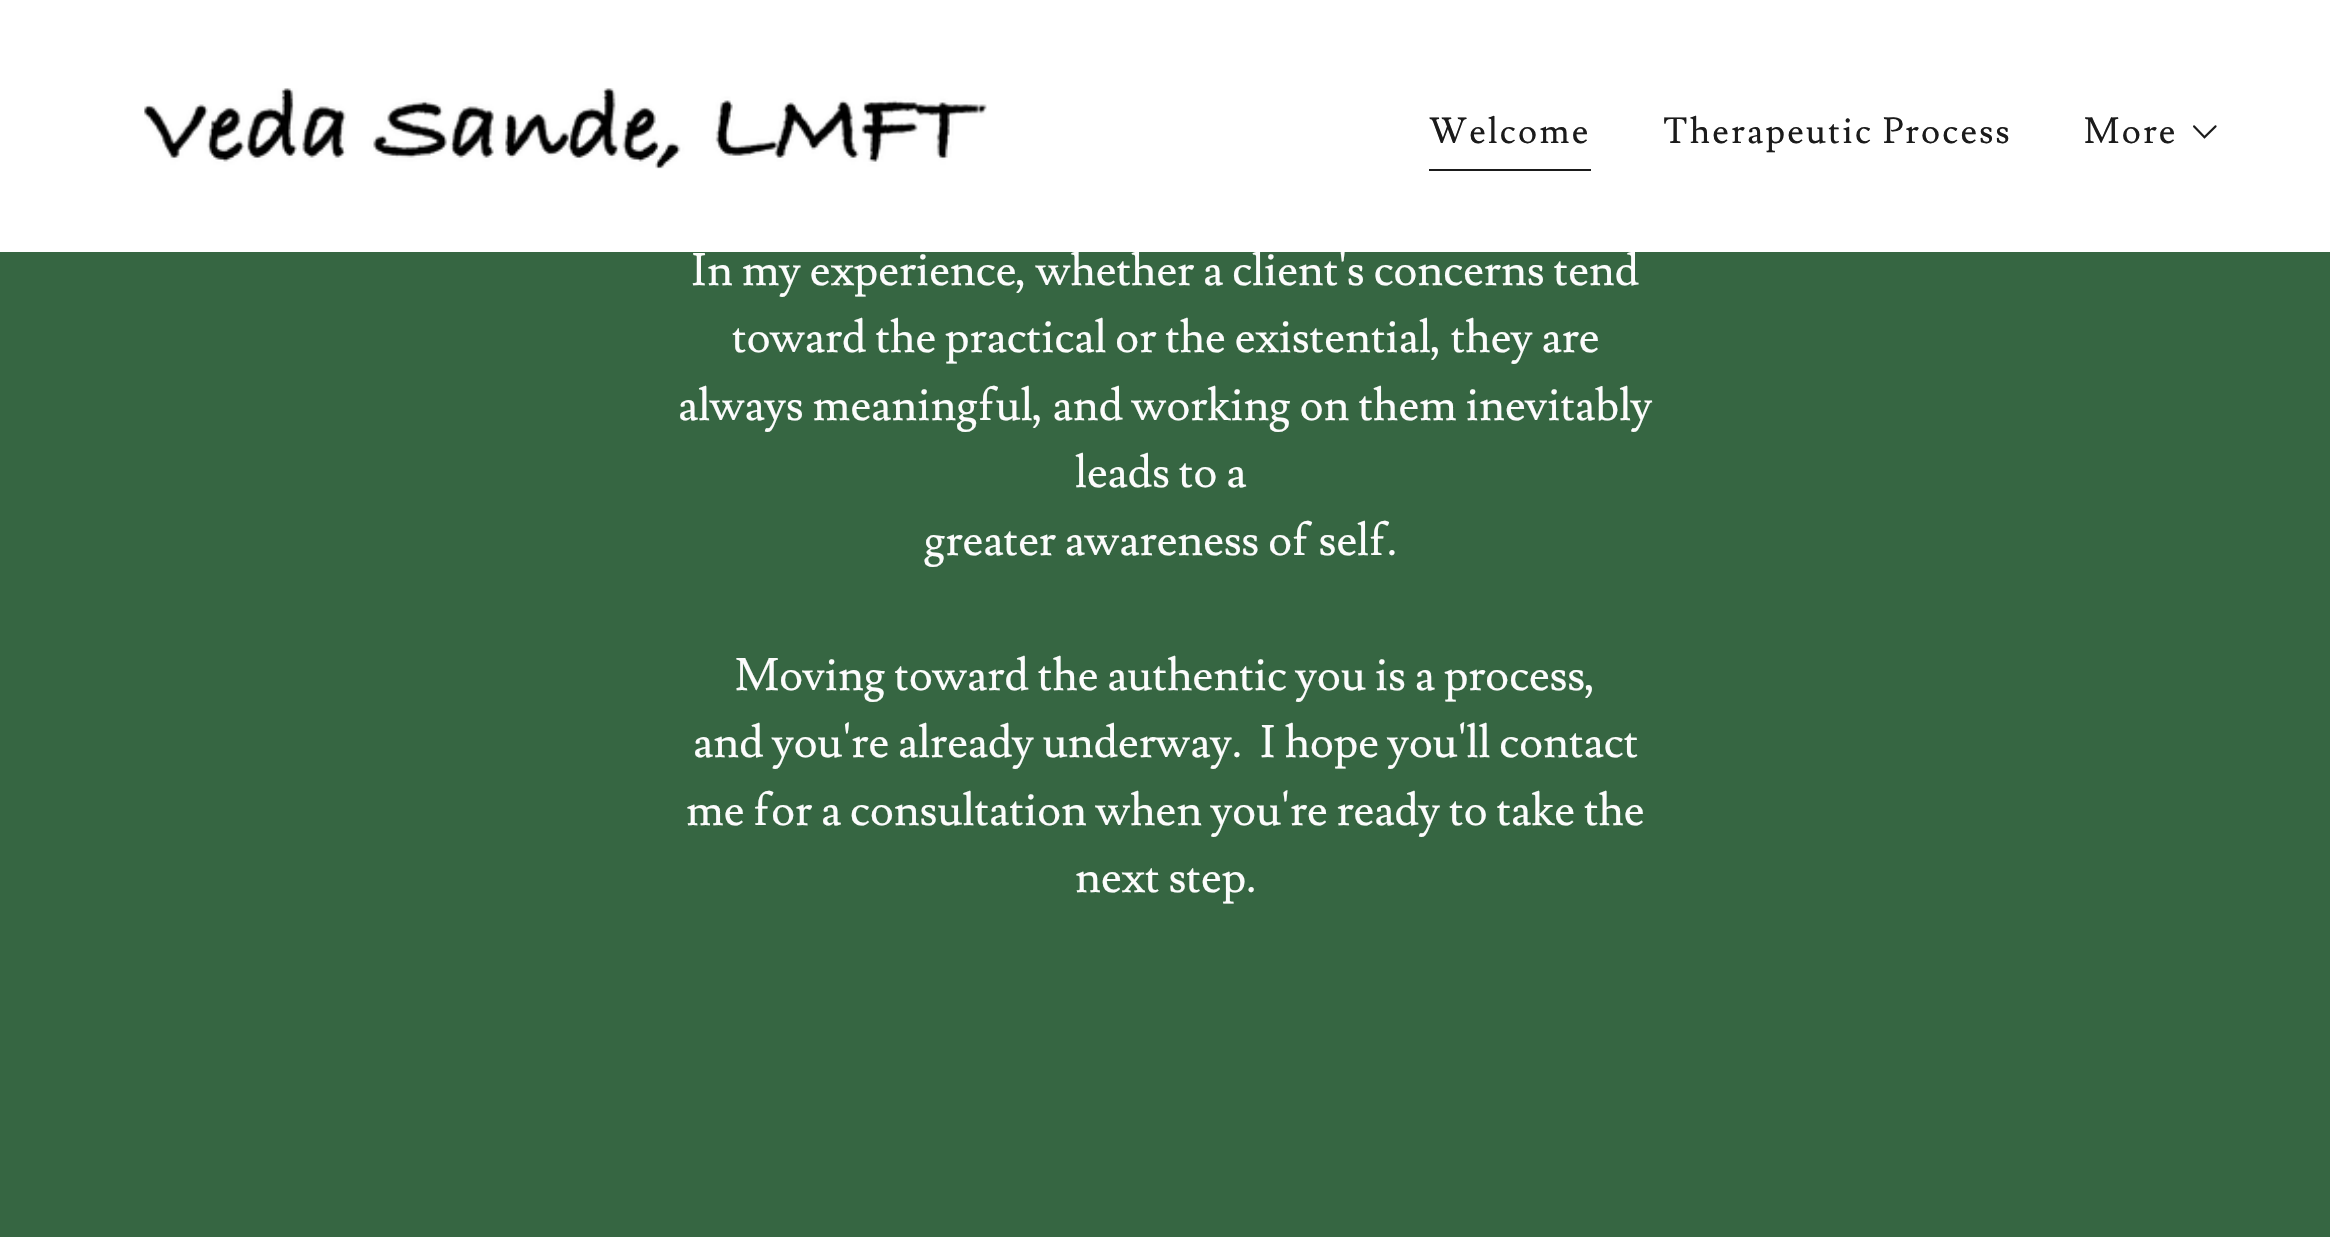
void draw(SkCanvas* canvas) {
    SkPaint paint;
    paint.setAntiAlias(true);
    auto face = [&](const char* family, int weight, float size, bool italic = false) {
        SkFontStyle style(weight, SkFontStyle::kNormal_Width,
            italic ? SkFontStyle::kItalic_Slant : SkFontStyle::kUpright_Slant);
        SkFont result(fontMgr->matchFamilyStyle(family, style), size);
        result.setSubpixel(true);
        return result;
    };
    auto write = [&](const char* s, float x, float y, const SkFont& font, SkColor color) {
        SkPaint ink(SkColor4f::FromColor(color));
        ink.setAntiAlias(true);
        canvas->drawString(s, x, y, font, ink);
    };
    auto writeSpaced = [&](const char* s, float x, float y, const SkFont& font, const SkPaint& ink, float letter, float word) {
        std::vector<SkGlyphID> glyphs(font.countText(s, strlen(s), SkTextEncoding::kUTF8));
        std::vector<float> xs(glyphs.size());
        font.textToGlyphs(s, strlen(s), SkTextEncoding::kUTF8, glyphs);
        font.getXPos(glyphs, xs, x);
        float extra = 0;
        for (size_t i = 0; i < glyphs.size(); i++) {
            xs[i] += extra;
            extra += letter + word * (glyphs[i] == font.unicharToGlyph(' '));
        }
        canvas->drawTextBlob(SkTextBlob::MakeFromPosHGlyphs(glyphs, xs, y, font), 0, 0, ink);
    };
    auto block = [&](float x, float y, float w, float h, SkColor color) {
        SkPaint ink(SkColor4f::FromColor(color));
        ink.setAntiAlias(true);
        canvas->drawRect(SkRect::MakeXYWH(x, y, w, h), ink);
    };
    auto paste = [&](const char* path, float x, float y, float w, float h) {
        auto image = SkImages::DeferredFromEncodedData(SkData::MakeFromFileName(path));
        canvas->drawImageRect(image, SkRect::MakeXYWH(x, y, w, h), SkSamplingOptions());
    };
    canvas->clear(SkColorSetRGB(54, 102, 66));
    auto kFont1 = face("Lusitana", 400, 45);
    write("In my experience, whether a client's concerns tend", 691, 285, kFont1, SkColorSetRGB(252, 252, 252));
    block(0, 0, 2330, 252, SK_ColorWHITE);
    paste("pic1.png", 144, 88, 843, 81);
    block(1429, 169, 162, 2, SkColorSetRGB(27, 27, 27));
    auto kFont2 = face("Lusitana", 400, 36);
    paint.setColor(SkColorSetRGB(27, 27, 27));
    writeSpaced("Welcome", 1429, 143, kFont2, paint, 2.25f, 0);
    writeSpaced("Therapeutic Process", 1663, 143, kFont2, paint, 2.25f, 0);
    writeSpaced("More", 2084, 143, kFont2, paint, 2.25f, 0);
    paste("pic2.png", 2193, 125, 24, 14);
    write("toward the practical or the existential, they are", 732, 352, kFont1, SkColorSetRGB(252, 252, 252));
    write("always meaningful, and working on them inevitably", 678, 420, kFont1, SkColorSetRGB(252, 252, 252));
    write("leads to a", 1075, 487, kFont1, SkColorSetRGB(252, 252, 252));
    write("greater awareness of self.", 924, 555, kFont1, SkColorSetRGB(252, 252, 252));
    write("Moving toward the authentic you is a process,", 735, 690, kFont1, SkColorSetRGB(252, 252, 252));
    write("and you're already underway.  I hope you'll contact", 693, 757, kFont1, SkColorSetRGB(252, 252, 252));
    write("me for a consultation when you're ready to take the", 686, 825, kFont1, SkColorSetRGB(252, 252, 252));
    write("next step.", 1075, 892, kFont1, SkColorSetRGB(252, 252, 252));
}
